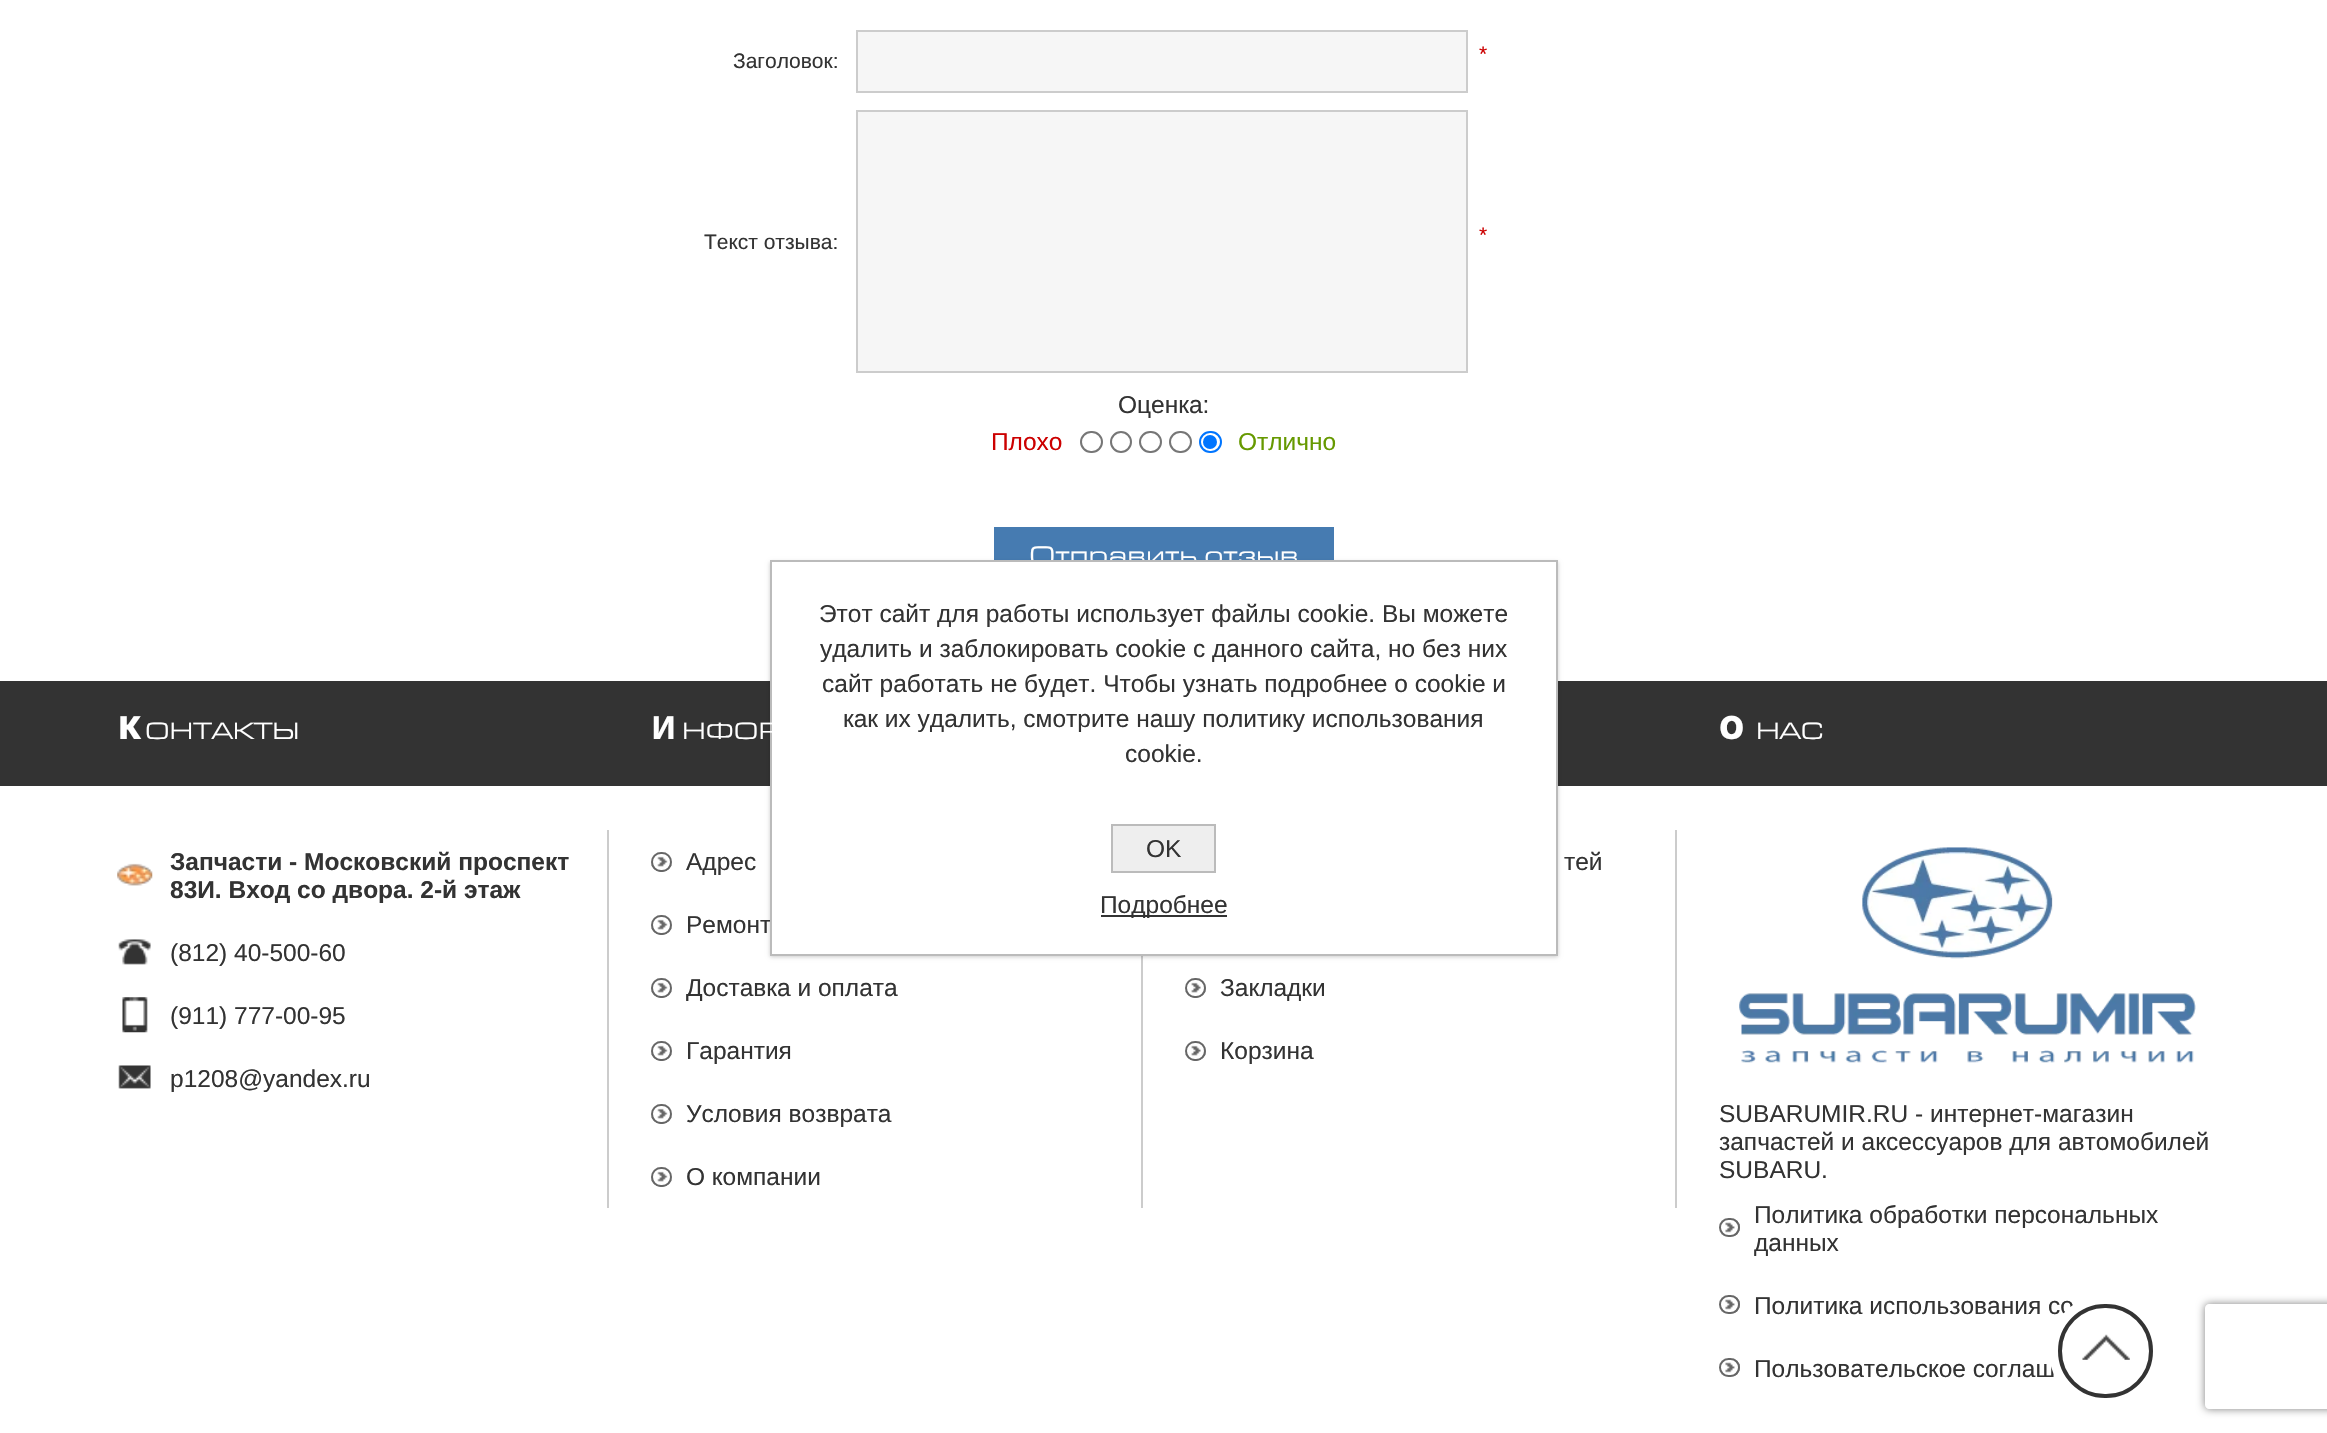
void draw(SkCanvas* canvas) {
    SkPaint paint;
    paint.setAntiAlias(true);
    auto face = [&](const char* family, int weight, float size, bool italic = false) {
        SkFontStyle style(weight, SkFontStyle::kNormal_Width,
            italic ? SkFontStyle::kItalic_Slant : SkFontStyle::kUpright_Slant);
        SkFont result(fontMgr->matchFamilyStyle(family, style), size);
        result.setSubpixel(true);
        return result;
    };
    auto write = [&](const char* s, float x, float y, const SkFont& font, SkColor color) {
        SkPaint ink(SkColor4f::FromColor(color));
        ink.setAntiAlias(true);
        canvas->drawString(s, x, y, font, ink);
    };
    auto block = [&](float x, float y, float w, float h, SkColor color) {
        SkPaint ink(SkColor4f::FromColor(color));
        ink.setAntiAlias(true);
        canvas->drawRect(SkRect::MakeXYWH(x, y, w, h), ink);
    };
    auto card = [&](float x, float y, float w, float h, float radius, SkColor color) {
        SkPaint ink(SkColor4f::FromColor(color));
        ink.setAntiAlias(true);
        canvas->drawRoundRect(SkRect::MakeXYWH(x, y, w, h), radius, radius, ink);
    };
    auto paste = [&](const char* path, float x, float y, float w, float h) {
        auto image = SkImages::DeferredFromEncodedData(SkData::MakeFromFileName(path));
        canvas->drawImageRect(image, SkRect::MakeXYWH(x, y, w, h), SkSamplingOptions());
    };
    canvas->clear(SK_ColorWHITE);
    paint.setColor(SkColorSetRGB(246, 246, 246));
    canvas->drawRect(SkRect::MakeXYWH(857, 31, 610, 61), paint);
    paint.setStyle(SkPaint::kStroke_Style);
    paint.setStrokeWidth(2);
    paint.setColor(SkColorSetRGB(204, 204, 204));
    canvas->drawRect(SkRect::MakeXYWH(857, 31, 610, 61), paint);
    auto kFont1 = face("Liberation Sans", 400, 21);
    write("*", 1479, 61, kFont1, SkColorSetRGB(204, 0, 0));
    write("Заголовок:", 733, 68, kFont1, SkColorSetRGB(51, 51, 51));
    paint.setStyle(SkPaint::kFill_Style);
    paint.setColor(SkColorSetRGB(246, 246, 246));
    canvas->drawRect(SkRect::MakeXYWH(857, 111, 610, 261), paint);
    paint.setStyle(SkPaint::kStroke_Style);
    paint.setColor(SkColorSetRGB(204, 204, 204));
    canvas->drawRect(SkRect::MakeXYWH(857, 111, 610, 261), paint);
    write("*", 1479, 242, kFont1, SkColorSetRGB(204, 0, 0));
    write("Текст отзыва:", 704, 249, kFont1, SkColorSetRGB(51, 51, 51));
    auto kFont2 = face("Liberation Sans", 400, 24.5f);
    write("Оценка:", 1118, 413, kFont2, SkColorSetRGB(51, 51, 51));
    write("Плохо", 991, 450, kFont2, SkColorSetRGB(204, 0, 0));
    paint.setColor(SkColorSetRGB(118, 118, 118));
    canvas->drawRoundRect(SkRect::MakeXYWH(1081, 432, 21, 20), 10, 10, paint);
    canvas->drawCircle(1121, 442, 10, paint);
    canvas->drawRoundRect(SkRect::MakeXYWH(1140, 432, 21, 20), 10, 10, paint);
    canvas->drawRoundRect(SkRect::MakeXYWH(1170, 432, 21, 20), 10, 10, paint);
    paint.setColor(SkColorSetRGB(0, 117, 255));
    canvas->drawRoundRect(SkRect::MakeXYWH(1200, 432, 21, 20), 10, 10, paint);
    paint.setStyle(SkPaint::kFill_Style);
    canvas->drawCircle(1210, 442, 7, paint);
    write("Отлично", 1238, 450, kFont2, SkColorSetRGB(102, 153, 0));
    block(994, 527, 340, 33, SkColorSetRGB(70, 123, 177));
    auto kFont3 = face("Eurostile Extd", 400, 26.25f);
    write("Отправить отзыв", 1029, 564, kFont3, SK_ColorWHITE);
    block(0, 681, 2327, 105, SkColorSetRGB(51, 51, 51));
    block(1141, 956, 2, 252, SkColorSetRGB(204, 204, 204));
    paint.setColor(SkColorSetARGB(51, 0, 0, 0));
    paint.setMaskFilter(SkMaskFilter::MakeBlur(kNormal_SkBlurStyle, 2));
    canvas->drawRect(SkRect::MakeXYWH(770, 562, 788, 395), paint);
    paint.setMaskFilter(nullptr);
    write("Ремонт", 686, 933, kFont2, SkColorSetRGB(51, 51, 51));
    paint.setColor(SK_ColorWHITE);
    canvas->drawRect(SkRect::MakeXYWH(771, 561, 786, 394), paint);
    paint.setStyle(SkPaint::kStroke_Style);
    paint.setColor(SkColorSetRGB(187, 187, 187));
    canvas->drawRect(SkRect::MakeXYWH(771, 561, 786, 394), paint);
    write("Этот сайт для работы использует файлы cookie. Вы можете", 819, 622, kFont2, SkColorSetRGB(51, 51, 51));
    write("удалить и заблокировать cookie с данного сайта, но без них", 820, 657, kFont2, SkColorSetRGB(51, 51, 51));
    write("сайт работать не будет. Чтобы узнать подробнее о cookie и", 822, 692, kFont2, SkColorSetRGB(51, 51, 51));
    write("как их удалить, смотрите нашу политику использования", 843, 727, kFont2, SkColorSetRGB(51, 51, 51));
    write("cookie.", 1125, 762, kFont2, SkColorSetRGB(51, 51, 51));
    paint.setStyle(SkPaint::kFill_Style);
    paint.setColor(SkColorSetRGB(238, 238, 238));
    canvas->drawRect(SkRect::MakeXYWH(1112, 825, 103, 47), paint);
    paint.setStyle(SkPaint::kStroke_Style);
    paint.setColor(SkColorSetRGB(187, 187, 187));
    canvas->drawRect(SkRect::MakeXYWH(1112, 825, 103, 47), paint);
    write("OK", 1146, 857, kFont2, SkColorSetRGB(51, 51, 51));
    block(1101, 915, 126, 2, SkColorSetRGB(51, 51, 51));
    write("Подробнее", 1100, 913, kFont2, SkColorSetRGB(51, 51, 51));
    auto kFont4 = face("Noto Sans", 900, 32);
    write("К", 118, 739, kFont4, SK_ColorWHITE);
    auto kFont5 = face("Eurostile Extd", 400, 24.5f);
    write("ОНТАКТЫ", 145, 739, kFont5, SK_ColorWHITE);
    block(607, 830, 2, 378, SkColorSetRGB(204, 204, 204));
    paste("pic1.png", 117, 863, 36, 23);
    auto kFont6 = face("Liberation Sans", 700, 24.5f);
    write("Запчасти - Московский проспект", 170, 870, kFont6, SkColorSetRGB(51, 51, 51));
    write("83И. Вход со двора. 2-й этаж", 170, 898, kFont6, SkColorSetRGB(51, 51, 51));
    paste("pic2.png", 118, 939, 33, 26);
    write("(812) 40-500-60", 170, 961, kFont2, SkColorSetRGB(51, 51, 51));
    paste("pic3.png", 122, 997, 26, 36);
    write("(911) 777-00-95", 170, 1024, kFont2, SkColorSetRGB(51, 51, 51));
    paste("pic4.png", 118, 1065, 33, 24);
    write("p1208@yandex.ru", 170, 1087, kFont2, SkColorSetRGB(51, 51, 51));
    auto kFont7 = face("Noto Sans", 700, 32);
    write("И", 651, 739, kFont7, SK_ColorWHITE);
    write("НФОР", 682, 739, kFont5, SK_ColorWHITE);
    card(651, 852, 21, 20, 10, SkColorSetRGB(102, 102, 102));
    paste("pic5.png", 651, 852, 21, 20);
    paint.setColor(SkColorSetRGB(102, 102, 102));
    canvas->drawRoundRect(SkRect::MakeXYWH(652, 853, 19, 18), 9, 9, paint);
    write("Адрес", 686, 870, kFont2, SkColorSetRGB(51, 51, 51));
    card(651, 915, 21, 20, 10, SkColorSetRGB(102, 102, 102));
    paste("pic5.png", 651, 915, 21, 20);
    canvas->drawRoundRect(SkRect::MakeXYWH(652, 916, 19, 18), 9, 9, paint);
    card(651, 978, 21, 20, 10, SkColorSetRGB(102, 102, 102));
    paste("pic5.png", 651, 978, 21, 20);
    canvas->drawRoundRect(SkRect::MakeXYWH(652, 979, 19, 18), 9, 9, paint);
    write("Доставка и оплата", 686, 996, kFont2, SkColorSetRGB(51, 51, 51));
    card(651, 1041, 21, 20, 10, SkColorSetRGB(102, 102, 102));
    paste("pic5.png", 651, 1041, 21, 20);
    canvas->drawRoundRect(SkRect::MakeXYWH(652, 1042, 19, 18), 9, 9, paint);
    write("Гарантия", 686, 1059, kFont2, SkColorSetRGB(51, 51, 51));
    card(651, 1104, 21, 20, 10, SkColorSetRGB(102, 102, 102));
    paste("pic5.png", 651, 1104, 21, 20);
    canvas->drawRoundRect(SkRect::MakeXYWH(652, 1105, 19, 18), 9, 9, paint);
    write("Условия возврата", 686, 1122, kFont2, SkColorSetRGB(51, 51, 51));
    card(651, 1167, 21, 20, 10, SkColorSetRGB(102, 102, 102));
    paste("pic5.png", 651, 1167, 21, 20);
    canvas->drawRoundRect(SkRect::MakeXYWH(652, 1168, 19, 18), 9, 9, paint);
    write("О компании", 686, 1185, kFont2, SkColorSetRGB(51, 51, 51));
    block(1675, 830, 2, 378, SkColorSetRGB(204, 204, 204));
    write("тей", 1564, 870, kFont2, SkColorSetRGB(51, 51, 51));
    card(1185, 978, 21, 20, 10, SkColorSetRGB(102, 102, 102));
    paste("pic6.png", 1185, 978, 21, 20);
    canvas->drawRoundRect(SkRect::MakeXYWH(1186, 979, 19, 18), 9, 9, paint);
    write("Закладки", 1220, 996, kFont2, SkColorSetRGB(51, 51, 51));
    card(1185, 1041, 21, 20, 10, SkColorSetRGB(102, 102, 102));
    paste("pic6.png", 1185, 1041, 21, 20);
    canvas->drawRoundRect(SkRect::MakeXYWH(1186, 1042, 19, 18), 9, 9, paint);
    write("Корзина", 1220, 1059, kFont2, SkColorSetRGB(51, 51, 51));
    write("О", 1719, 739, kFont4, SK_ColorWHITE);
    write("НАС", 1756, 739, kFont5, SK_ColorWHITE);
    paste("pic7.png", 1739, 847, 457, 216);
    write("SUBARUMIR.RU - интернет-магазин", 1719, 1122, kFont2, SkColorSetRGB(51, 51, 51));
    write("запчастей и аксессуаров для автомобилей", 1719, 1150, kFont2, SkColorSetRGB(51, 51, 51));
    write("SUBARU.", 1719, 1178, kFont2, SkColorSetRGB(51, 51, 51));
    card(1719, 1218, 21, 19, 9.5f, SkColorSetRGB(102, 102, 102));
    paste("pic8.png", 1719, 1218, 21, 19);
    canvas->drawRoundRect(SkRect::MakeXYWH(1720, 1219, 19, 17), 8.5f, 8.5f, paint);
    write("Политика обработки персональных", 1754, 1223, kFont2, SkColorSetRGB(51, 51, 51));
    write("данных", 1754, 1251, kFont2, SkColorSetRGB(51, 51, 51));
    card(1719, 1295, 21, 19, 9.5f, SkColorSetRGB(102, 102, 102));
    paste("pic8.png", 1719, 1295, 21, 19);
    canvas->drawRoundRect(SkRect::MakeXYWH(1720, 1296, 19, 17), 8.5f, 8.5f, paint);
    write("Политика использования co", 1754, 1314, kFont2, SkColorSetRGB(51, 51, 51));
    card(1719, 1358, 21, 19, 9.5f, SkColorSetRGB(102, 102, 102));
    paste("pic8.png", 1719, 1358, 21, 19);
    canvas->drawRoundRect(SkRect::MakeXYWH(1720, 1359, 19, 17), 8.5f, 8.5f, paint);
    write("Пользовательское соглаш", 1754, 1377, kFont2, SkColorSetRGB(51, 51, 51));
    canvas->save();
    canvas->clipPath(SkPathBuilder(SkPathFillType::kEvenOdd).moveTo(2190, 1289).lineTo(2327, 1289).lineTo(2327, 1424).lineTo(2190, 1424).close().moveTo(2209, 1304).lineTo(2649, 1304).cubicTo(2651, 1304, 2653, 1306, 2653, 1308).lineTo(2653, 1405).cubicTo(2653, 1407, 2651, 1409, 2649, 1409).lineTo(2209, 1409).cubicTo(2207, 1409, 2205, 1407, 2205, 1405).lineTo(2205, 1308).cubicTo(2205, 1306, 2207, 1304, 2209, 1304).close().detach(), true);
    paint.setStyle(SkPaint::kFill_Style);
    paint.setColor(SkColorSetRGB(128, 128, 128));
    paint.setMaskFilter(SkMaskFilter::MakeBlur(kNormal_SkBlurStyle, 4.5f));
    canvas->drawRoundRect(SkRect::MakeXYWH(2205, 1304, 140, 105), 4, 4, paint);
    paint.setMaskFilter(nullptr);
    canvas->restore();
    paint.setStyle(SkPaint::kStroke_Style);
    paint.setStrokeWidth(9);
    paint.setColor(SK_ColorWHITE);
    canvas->drawCircle(2105, 1351, 51.5f, paint);
    paste("pic9.png", 2082, 1334, 48, 26);
    paint.setStrokeWidth(4);
    paint.setColor(SkColorSetRGB(51, 51, 51));
    canvas->drawRoundRect(SkRect::MakeXYWH(2060, 1306, 91, 90), 45, 45, paint);
}
